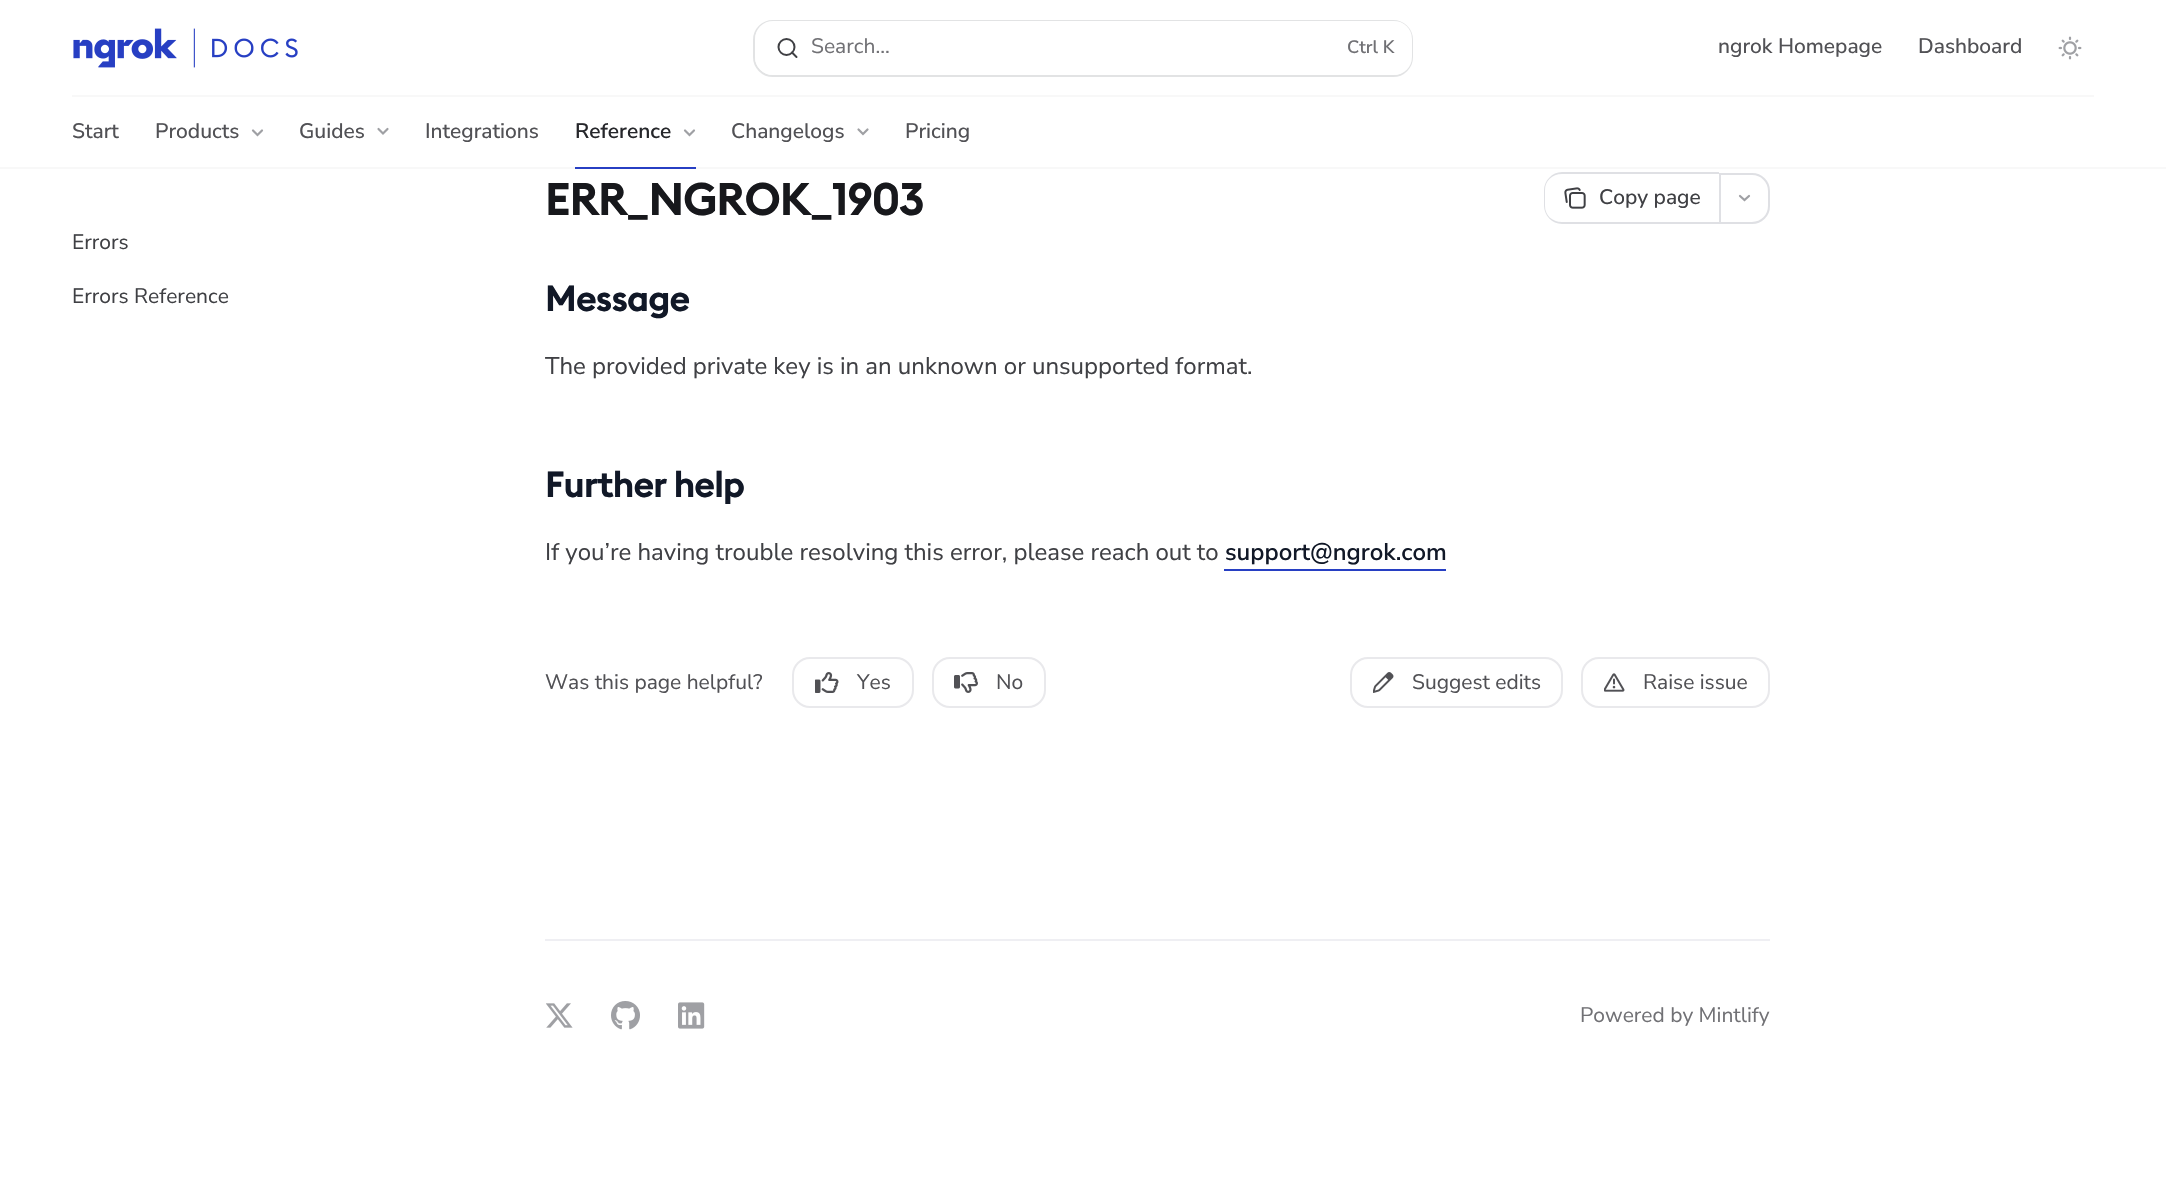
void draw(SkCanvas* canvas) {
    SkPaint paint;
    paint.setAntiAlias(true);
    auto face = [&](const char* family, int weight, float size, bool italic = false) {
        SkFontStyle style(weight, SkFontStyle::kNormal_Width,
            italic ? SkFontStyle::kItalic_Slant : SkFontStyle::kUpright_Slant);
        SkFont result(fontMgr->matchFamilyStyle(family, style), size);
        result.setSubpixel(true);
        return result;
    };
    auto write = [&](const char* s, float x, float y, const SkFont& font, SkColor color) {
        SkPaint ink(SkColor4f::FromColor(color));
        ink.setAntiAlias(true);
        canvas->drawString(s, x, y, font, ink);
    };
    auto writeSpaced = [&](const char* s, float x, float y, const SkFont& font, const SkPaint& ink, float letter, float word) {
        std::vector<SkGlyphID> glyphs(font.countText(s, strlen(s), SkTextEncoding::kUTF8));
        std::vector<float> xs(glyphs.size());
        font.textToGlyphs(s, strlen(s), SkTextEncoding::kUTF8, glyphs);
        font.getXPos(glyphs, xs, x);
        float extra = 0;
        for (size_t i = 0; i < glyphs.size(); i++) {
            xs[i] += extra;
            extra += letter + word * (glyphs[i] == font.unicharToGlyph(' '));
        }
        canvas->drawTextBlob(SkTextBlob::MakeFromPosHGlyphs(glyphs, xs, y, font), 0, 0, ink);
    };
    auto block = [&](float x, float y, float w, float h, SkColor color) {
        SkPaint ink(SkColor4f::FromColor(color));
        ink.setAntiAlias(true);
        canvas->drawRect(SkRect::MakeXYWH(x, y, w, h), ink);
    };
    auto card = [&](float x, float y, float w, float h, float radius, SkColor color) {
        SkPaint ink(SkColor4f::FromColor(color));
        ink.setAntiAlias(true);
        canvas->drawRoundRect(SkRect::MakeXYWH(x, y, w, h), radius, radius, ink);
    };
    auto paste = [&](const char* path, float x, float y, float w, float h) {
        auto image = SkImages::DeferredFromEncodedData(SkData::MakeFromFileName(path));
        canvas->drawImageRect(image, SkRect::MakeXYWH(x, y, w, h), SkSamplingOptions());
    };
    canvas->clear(SK_ColorWHITE);
    block(72, 95, 2022, 2, SkColorSetRGB(248, 248, 248));
    paste("pic1.png", 73, 28, 225, 40);
    paint.setStyle(SkPaint::kStroke_Style);
    paint.setStrokeWidth(2);
    paint.setColor(SkColorSetRGB(226, 227, 228));
    canvas->drawRoundRect(SkRect::MakeXYWH(754, 21, 658, 55), 19, 19, paint);
    card(755, 21, 657, 54, 18, SK_ColorWHITE);
    paint.setColor(SkColorSetRGB(63, 64, 68));
    canvas->drawCircle(786.5f, 47, 8, paint);
    paint.setStrokeCap(SkPaint::kRound_Cap);
    paint.setStrokeJoin(SkPaint::kRound_Join);
    canvas->drawPath(SkPathBuilder().moveTo(796.5f, 57).lineTo(792, 52.5f).detach(), paint);
    auto kFont1 = face("Nunito Sans", 400, 21);
    write("Search...", 811, 53, kFont1, SkColorSetRGB(113, 113, 117));
    auto kFont2 = face("Nunito Sans", 600, 18);
    write("Ctrl K", 1347, 53, kFont2, SkColorSetRGB(113, 113, 117));
    auto kFont3 = face("Nunito Sans", 500, 21);
    write("ngrok Homepage", 1718, 53, kFont3, SkColorSetRGB(81, 81, 85));
    write("Dashboard", 1918, 53, kFont3, SkColorSetRGB(81, 81, 85));
    paste("pic2.png", 2058, 36, 24, 24);
    write("Start", 72, 138, kFont3, SkColorSetRGB(81, 81, 85));
    write("Products", 155, 138, kFont3, SkColorSetRGB(81, 81, 85));
    paint.setStrokeWidth(2.2f);
    paint.setStrokeJoin(SkPaint::kMiter_Join);
    paint.setColor(SkColorSetRGB(159, 160, 164));
    canvas->drawPath(SkPathBuilder().moveTo(262, 130.5f).lineTo(257.5f, 135).lineTo(253, 130.5f).detach(), paint);
    write("Guides", 299, 138, kFont3, SkColorSetRGB(81, 81, 85));
    canvas->drawPath(SkPathBuilder().moveTo(387.5f, 129).lineTo(383, 133.5f).lineTo(378.5f, 129).detach(), paint);
    write("Integrations", 425, 138, kFont3, SkColorSetRGB(81, 81, 85));
    auto kFont4 = face("Nunito Sans", 600, 21);
    write("Reference", 575, 138, kFont4, SkColorSetRGB(38, 39, 43));
    canvas->drawPath(SkPathBuilder().moveTo(694, 130.5f).lineTo(689.5f, 135).lineTo(685, 130.5f).detach(), paint);
    block(0, 167, 2166, 2, SkColorSetRGB(248, 248, 248));
    block(575, 167, 121, 2, SkColorSetRGB(39, 63, 195));
    write("Changelogs", 731, 138, kFont3, SkColorSetRGB(81, 81, 85));
    canvas->drawPath(SkPathBuilder().moveTo(867.5f, 129.5f).lineTo(863, 134).lineTo(858.5f, 129.5f).detach(), paint);
    write("Pricing", 905, 138, kFont3, SkColorSetRGB(81, 81, 85));
    write("Errors", 72, 249, kFont1, SkColorSetRGB(63, 64, 68));
    write("Errors Reference", 72, 303, kFont1, SkColorSetRGB(63, 64, 68));
    auto kFont5 = face("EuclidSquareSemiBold", 600, 45);
    paint.setStyle(SkPaint::kFill_Style);
    paint.setColor(SkColorSetRGB(23, 24, 28));
    writeSpaced("ERR_NGROK_1903", 545, 215, kFont5, paint, -1.1f, 0);
    paint.setColor(SkColorSetRGB(223, 224, 228));
    canvas->drawPath(SkPathBuilder(SkPathFillType::kEvenOdd).moveTo(1562, 172).lineTo(1719, 172).lineTo(1719, 224).lineTo(1562, 224).cubicTo(1552, 224, 1544, 215, 1544, 206).lineTo(1544, 190).cubicTo(1544, 181, 1552, 172, 1562, 172).close().moveTo(1562, 174).lineTo(1719, 174).lineTo(1719, 222).lineTo(1562, 222).cubicTo(1552, 222, 1545, 215, 1545, 206).lineTo(1545, 190).cubicTo(1545, 181, 1552, 174, 1562, 174).close().detach(), paint);
    paste("pic3.png", 1564, 187, 22, 22);
    write("Copy page", 1599, 204, kFont3, SkColorSetRGB(63, 64, 68));
    paint.setStyle(SkPaint::kStroke_Style);
    paint.setStrokeWidth(2);
    paint.setStrokeCap(SkPaint::kButt_Cap);
    canvas->drawPath(SkPathBuilder().moveTo(1720, 174).lineTo(1752, 174).cubicTo(1761.5f, 174, 1769, 181.5f, 1769, 191).lineTo(1769, 206).cubicTo(1769, 215.5f, 1761.5f, 223, 1752, 223).lineTo(1720, 223).close().detach(), paint);
    paint.setStrokeWidth(2.2f);
    paint.setStrokeCap(SkPaint::kRound_Cap);
    paint.setColor(SkColorSetRGB(159, 160, 164));
    canvas->drawPath(SkPathBuilder().moveTo(1749, 196).lineTo(1744.5f, 200).lineTo(1740, 196).detach(), paint);
    auto kFont6 = face("EuclidSquareSemiBold", 600, 36);
    paint.setStyle(SkPaint::kFill_Style);
    paint.setColor(SkColorSetRGB(17, 24, 39));
    writeSpaced("Message", 545, 311, kFont6, paint, -0.9f, 0);
    auto kFont7 = face("Nunito Sans", 400, 24);
    write("The provided private key is in an unknown or unsupported format.", 545, 374, kFont7, SkColorSetRGB(63, 64, 68));
    writeSpaced("Further help", 545, 497, kFont6, paint, -0.9f, 0);
    write("If you’re having trouble resolving this error, please reach out to", 545, 560, kFont7, SkColorSetRGB(63, 64, 68));
    auto kFont8 = face("Nunito Sans", 600, 24);
    write("support@ngrok.com", 1225, 560, kFont8, SkColorSetRGB(17, 24, 39));
    block(1224, 569, 222, 2, SkColorSetRGB(39, 63, 195));
    write("Was this page helpful?", 545, 689, kFont1, SkColorSetRGB(81, 81, 85));
    paint.setStyle(SkPaint::kStroke_Style);
    paint.setStrokeWidth(2);
    paint.setStrokeCap(SkPaint::kButt_Cap);
    paint.setColor(SkColorSetRGB(233, 233, 236));
    canvas->drawRoundRect(SkRect::MakeXYWH(793, 658, 120, 49), 17, 17, paint);
    paste("pic4.png", 815, 672, 24, 21);
    write("Yes", 857, 689, kFont1, SkColorSetRGB(81, 81, 85));
    canvas->drawRoundRect(SkRect::MakeXYWH(933, 658, 112, 49), 17, 17, paint);
    paste("pic5.png", 954, 672, 24, 21);
    write("No", 996, 689, kFont1, SkColorSetRGB(81, 81, 85));
    canvas->drawRoundRect(SkRect::MakeXYWH(1351, 658, 211, 49), 17, 17, paint);
    paste("pic6.png", 1373, 672, 21, 21);
    write("Suggest edits", 1412, 689, kFont1, SkColorSetRGB(81, 81, 85));
    canvas->drawRoundRect(SkRect::MakeXYWH(1582, 658, 187, 49), 17, 17, paint);
    paste("pic7.png", 1604, 673, 21, 19);
    write("Raise issue", 1643, 689, kFont1, SkColorSetRGB(81, 81, 85));
    block(545, 939, 1225, 2, SkColorSetRGB(239, 239, 243));
    paste("pic8.png", 546, 1003, 27, 25);
    paste("pic9.png", 611, 1001, 29, 29);
    paste("pic10.png", 678, 1002, 27, 27);
    write("Powered by Mintlify", 1580, 1022, kFont1, SkColorSetRGB(113, 113, 117));
}
